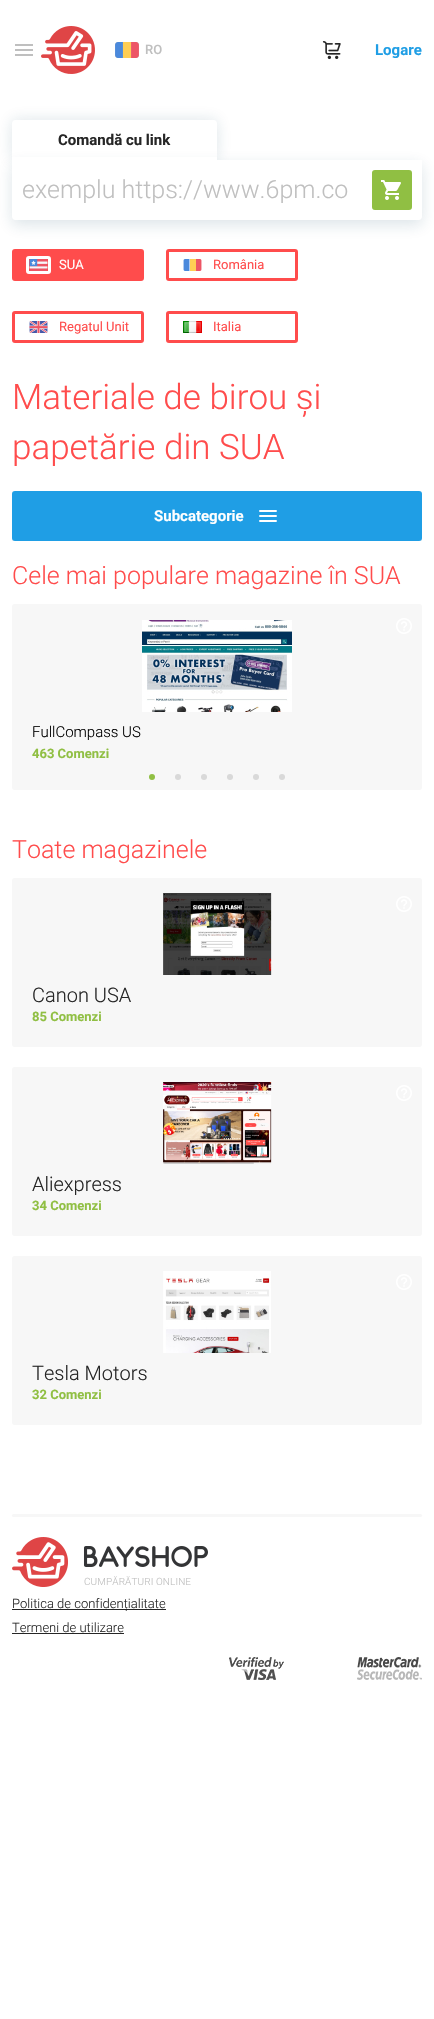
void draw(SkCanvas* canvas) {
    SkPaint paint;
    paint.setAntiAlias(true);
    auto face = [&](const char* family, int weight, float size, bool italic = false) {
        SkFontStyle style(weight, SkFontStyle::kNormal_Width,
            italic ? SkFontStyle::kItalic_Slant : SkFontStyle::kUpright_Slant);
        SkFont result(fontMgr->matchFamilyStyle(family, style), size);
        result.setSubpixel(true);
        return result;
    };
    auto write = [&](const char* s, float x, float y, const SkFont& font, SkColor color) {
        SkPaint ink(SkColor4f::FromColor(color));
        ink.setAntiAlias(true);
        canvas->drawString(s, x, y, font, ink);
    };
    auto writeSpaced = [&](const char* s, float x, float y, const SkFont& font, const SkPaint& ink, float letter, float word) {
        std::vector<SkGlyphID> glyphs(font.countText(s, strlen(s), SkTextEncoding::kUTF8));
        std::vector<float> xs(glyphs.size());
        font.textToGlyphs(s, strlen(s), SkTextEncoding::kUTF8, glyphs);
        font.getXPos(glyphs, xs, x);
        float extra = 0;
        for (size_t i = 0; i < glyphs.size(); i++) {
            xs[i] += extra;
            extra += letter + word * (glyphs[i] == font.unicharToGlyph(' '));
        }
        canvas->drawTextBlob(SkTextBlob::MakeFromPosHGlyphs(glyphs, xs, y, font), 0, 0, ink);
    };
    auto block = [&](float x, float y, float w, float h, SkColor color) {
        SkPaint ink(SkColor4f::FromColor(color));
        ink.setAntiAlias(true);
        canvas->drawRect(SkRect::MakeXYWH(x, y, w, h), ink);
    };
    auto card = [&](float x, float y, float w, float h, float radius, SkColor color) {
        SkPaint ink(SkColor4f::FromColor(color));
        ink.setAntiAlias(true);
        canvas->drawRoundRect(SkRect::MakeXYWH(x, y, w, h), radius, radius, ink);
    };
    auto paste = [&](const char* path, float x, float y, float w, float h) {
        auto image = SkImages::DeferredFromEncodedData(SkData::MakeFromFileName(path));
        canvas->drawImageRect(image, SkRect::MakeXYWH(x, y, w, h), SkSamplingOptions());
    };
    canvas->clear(SK_ColorWHITE);
    paste("pic1.png", 15, 44, 18, 12);
    paste("pic2.png", 41, 26, 54, 48);
    card(115, 42, 24, 16, 3, SkColorSetRGB(191, 191, 191));
    paste("pic3.png", 115, 42, 24, 16);
    auto kFont1 = face("Roboto", 500, 13);
    write("RO", 145, 54, kFont1, SkColorSetRGB(191, 191, 191));
    paste("pic4.png", 322, 41, 19, 19);
    auto kFont2 = face("Roboto", 700, 15);
    write("Logare", 375, 55, kFont2, SkColorSetRGB(31, 158, 229));
    paint.setColor(SkColorSetARGB(38, 20, 75, 102));
    paint.setMaskFilter(SkMaskFilter::MakeBlur(kNormal_SkBlurStyle, 7.5f));
    canvas->drawRoundRect(SkRect::MakeXYWH(12, 120, 205, 40), 3, 3, paint);
    paint.setMaskFilter(nullptr);
    paint.setColor(SK_ColorWHITE);
    canvas->drawPath(SkPathBuilder().moveTo(15, 120).lineTo(214, 120).cubicTo(215.5f, 120, 217, 121.5f, 217, 123).lineTo(217, 160).lineTo(12, 160).lineTo(12, 123).cubicTo(12, 121.5f, 13.5f, 120, 15, 120).close().detach(), paint);
    write("Comandă cu link", 58, 145, kFont2, SkColorSetRGB(38, 38, 38));
    paint.setColor(SkColorSetARGB(38, 20, 75, 102));
    paint.setMaskFilter(SkMaskFilter::MakeBlur(kNormal_SkBlurStyle, 7.5f));
    canvas->drawRoundRect(SkRect::MakeXYWH(12, 165, 410, 60), 3, 3, paint);
    paint.setMaskFilter(nullptr);
    block(12, 157, 205, 3, SK_ColorWHITE);
    paint.setColor(SK_ColorWHITE);
    canvas->drawPath(SkPathBuilder().moveTo(12, 160).lineTo(422, 160).lineTo(422, 217).cubicTo(422, 218.5f, 420.5f, 220, 419, 220).lineTo(15, 220).cubicTo(13.5f, 220, 12, 218.5f, 12, 217).close().detach(), paint);
    auto kFont3 = face("Roboto", 300, 25);
    write("exemplu https://www.6pm.co", 22, 198, kFont3, SkColorSetRGB(191, 191, 191));
    paint.setColor(SkColorSetRGB(144, 191, 67));
    canvas->drawRoundRect(SkRect::MakeXYWH(373.5f, 171.5f, 37, 37), 1.5f, 1.5f, paint);
    paint.setStyle(SkPaint::kStroke_Style);
    paint.setStrokeWidth(3);
    canvas->drawRoundRect(SkRect::MakeXYWH(373.5f, 171.5f, 37, 37), 1.5f, 1.5f, paint);
    paste("pic5.png", 381, 180, 20, 20);
    paint.setStyle(SkPaint::kFill_Style);
    paint.setColor(SkColorSetRGB(255, 76, 76));
    canvas->drawRoundRect(SkRect::MakeXYWH(13.5f, 250.5f, 129, 29), 1.5f, 1.5f, paint);
    paint.setStyle(SkPaint::kStroke_Style);
    canvas->drawRoundRect(SkRect::MakeXYWH(13.5f, 250.5f, 129, 29), 1.5f, 1.5f, paint);
    paint.setColor(SK_ColorWHITE);
    canvas->drawRoundRect(SkRect::MakeXYWH(27.5f, 257.5f, 22, 15), 1.5f, 1.5f, paint);
    paste("pic6.png", 29, 259, 19, 12);
    auto kFont4 = face("Roboto", 400, 13);
    write("SUA", 59, 269, kFont4, SK_ColorWHITE);
    paint.setColor(SkColorSetRGB(255, 76, 76));
    canvas->drawRoundRect(SkRect::MakeXYWH(167.5f, 250.5f, 129, 29), 1.5f, 1.5f, paint);
    paste("pic7.png", 183, 259, 19, 12);
    write("România", 213, 269, kFont4, SkColorSetRGB(255, 76, 76));
    canvas->drawRoundRect(SkRect::MakeXYWH(13.5f, 312.5f, 129, 29), 1.5f, 1.5f, paint);
    paste("pic8.png", 29, 321, 19, 12);
    write("Regatul Unit", 59, 331, kFont4, SkColorSetRGB(255, 76, 76));
    canvas->drawRoundRect(SkRect::MakeXYWH(167.5f, 312.5f, 129, 29), 1.5f, 1.5f, paint);
    paste("pic9.png", 183, 321, 19, 12);
    write("Italia", 213, 331, kFont4, SkColorSetRGB(255, 76, 76));
    auto kFont5 = face("Roboto", 300, 35);
    write("Materiale de birou și", 12, 409, kFont5, SkColorSetRGB(255, 76, 76));
    write("papetărie din SUA", 12, 459, kFont5, SkColorSetRGB(255, 76, 76));
    canvas->save();
    canvas->clipRect(SkRect::MakeXYWH(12, 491, 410, 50));
    paint.setStyle(SkPaint::kFill_Style);
    paint.setColor(SkColorSetARGB(38, 20, 75, 102));
    paint.setMaskFilter(SkMaskFilter::MakeBlur(kNormal_SkBlurStyle, 7.5f));
    canvas->drawRoundRect(SkRect::MakeXYWH(12, 496, 410, 50), 3, 3, paint);
    paint.setMaskFilter(nullptr);
    canvas->restore();
    card(12, 491, 410, 50, 3, SkColorSetRGB(31, 158, 229));
    write("Subcategorie", 154, 521, kFont2, SK_ColorWHITE);
    paste("pic10.png", 259, 510, 18, 12);
    write("Cele mai populare magazine în SUA", 12, 584, kFont3, SkColorSetRGB(255, 76, 76));
    card(12, 604, 410, 186, 3, SkColorSetRGB(247, 247, 247));
    paste("pic11.png", 396, 618, 16, 16);
    paste("pic12.png", 142, 620, 150, 92);
    auto kFont6 = face("Roboto", 300, 15);
    write("FullCompass US", 32, 737, kFont6, SK_ColorBLACK);
    auto kFont7 = face("Roboto", 700, 13);
    write("463 Comenzi", 32, 758, kFont7, SkColorSetRGB(144, 191, 67));
    paint.setColor(SkColorSetRGB(144, 191, 67));
    canvas->drawCircle(152, 777, 3, paint);
    paint.setColor(SkColorSetRGB(217, 217, 217));
    canvas->drawCircle(178, 777, 3, paint);
    canvas->drawCircle(204, 777, 3, paint);
    canvas->drawCircle(230, 777, 3, paint);
    canvas->drawCircle(256, 777, 3, paint);
    canvas->drawCircle(282, 777, 3, paint);
    write("Toate magazinele", 12, 858, kFont3, SkColorSetRGB(255, 76, 76));
    card(12, 878, 410, 169, 3, SkColorSetRGB(247, 247, 247));
    paste("pic11.png", 396, 896, 16, 16);
    paste("pic13.png", 163, 893, 109, 82);
    auto kFont8 = face("Roboto", 300, 20);
    write("Canon USA", 32, 1002, kFont8, SkColorSetRGB(38, 38, 38));
    write("85 Comenzi", 32, 1021, kFont7, SkColorSetRGB(144, 191, 67));
    card(12, 1067, 410, 169, 3, SkColorSetRGB(247, 247, 247));
    paste("pic11.png", 396, 1085, 16, 16);
    paste("pic14.png", 163, 1082, 109, 82);
    write("Aliexpress", 32, 1191, kFont8, SkColorSetRGB(38, 38, 38));
    write("34 Comenzi", 32, 1210, kFont7, SkColorSetRGB(144, 191, 67));
    card(12, 1256, 410, 169, 3, SkColorSetRGB(247, 247, 247));
    paste("pic11.png", 396, 1274, 16, 16);
    paste("pic15.png", 163, 1271, 108, 82);
    write("Tesla Motors", 32, 1380, kFont8, SkColorSetRGB(38, 38, 38));
    write("32 Comenzi", 32, 1399, kFont7, SkColorSetRGB(144, 191, 67));
    card(12, 1514, 410, 3, 1.5f, SkColorSetRGB(247, 247, 247));
    paste("pic16.png", 12, 1537, 196, 50);
    auto kFont9 = face("Roboto", 300, 10);
    paint.setColor(SkColorSetRGB(191, 191, 191));
    writeSpaced("CUMPĂRĂTURI ONLINE", 84, 1585, kFont9, paint, 0.1f, 0);
    block(12, 1609, 154, 1, SkColorSetRGB(38, 38, 38));
    auto kFont10 = face("Roboto", 300, 13);
    write("Politica de confidențialitate", 12, 1608, kFont10, SkColorSetRGB(38, 38, 38));
    write("Termeni de utilizare", 12, 1632, kFont10, SkColorSetRGB(38, 38, 38));
    block(12, 1633, 112, 1, SkColorSetRGB(38, 38, 38));
    paste("pic17.png", 229, 1657, 55, 23);
    paste("pic18.png", 357, 1657, 65, 23);
}
